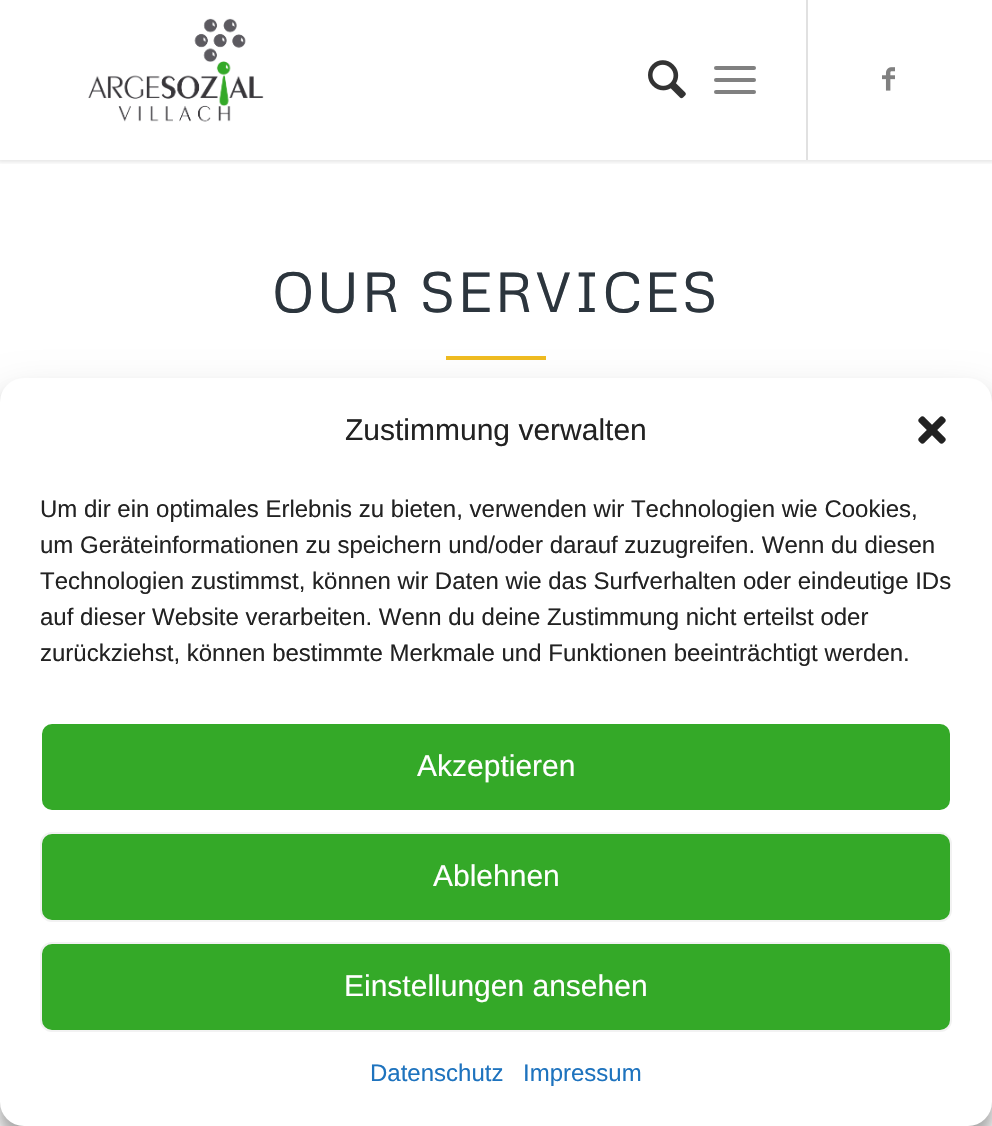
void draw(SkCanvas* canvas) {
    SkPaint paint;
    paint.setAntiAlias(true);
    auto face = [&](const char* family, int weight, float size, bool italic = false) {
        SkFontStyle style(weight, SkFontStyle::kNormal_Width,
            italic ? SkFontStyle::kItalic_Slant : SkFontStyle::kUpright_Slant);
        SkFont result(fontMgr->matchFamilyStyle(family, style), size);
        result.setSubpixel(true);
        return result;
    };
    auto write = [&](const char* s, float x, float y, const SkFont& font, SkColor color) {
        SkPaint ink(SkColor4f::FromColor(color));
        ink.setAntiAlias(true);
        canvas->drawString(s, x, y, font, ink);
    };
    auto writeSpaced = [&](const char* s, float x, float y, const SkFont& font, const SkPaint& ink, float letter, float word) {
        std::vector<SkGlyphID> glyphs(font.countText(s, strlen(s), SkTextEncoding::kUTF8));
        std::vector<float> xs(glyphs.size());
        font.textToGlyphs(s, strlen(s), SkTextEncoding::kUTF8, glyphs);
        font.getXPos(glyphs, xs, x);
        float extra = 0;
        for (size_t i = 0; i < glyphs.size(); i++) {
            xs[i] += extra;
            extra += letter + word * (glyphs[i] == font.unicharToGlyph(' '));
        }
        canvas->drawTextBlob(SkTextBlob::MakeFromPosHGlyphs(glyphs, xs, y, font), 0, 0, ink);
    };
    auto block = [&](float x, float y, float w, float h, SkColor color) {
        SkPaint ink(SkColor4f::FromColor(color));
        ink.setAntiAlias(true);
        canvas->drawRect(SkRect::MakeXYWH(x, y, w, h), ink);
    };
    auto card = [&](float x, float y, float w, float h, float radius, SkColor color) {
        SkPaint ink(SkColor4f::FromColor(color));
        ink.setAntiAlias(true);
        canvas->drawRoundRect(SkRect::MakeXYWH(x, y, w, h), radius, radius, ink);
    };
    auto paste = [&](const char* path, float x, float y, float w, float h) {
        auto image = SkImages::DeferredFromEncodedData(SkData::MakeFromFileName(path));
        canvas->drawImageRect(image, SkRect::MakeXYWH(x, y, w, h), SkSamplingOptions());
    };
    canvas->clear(SK_ColorWHITE);
    canvas->save();
    canvas->clipRect(SkRect::MakeXYWH(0, 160, 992, 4));
    paint.setColor(SkColorSetARGB(26, 0, 0, 0));
    paint.setMaskFilter(SkMaskFilter::MakeBlur(kNormal_SkBlurStyle, 2));
    canvas->drawRect(SkRect::MakeXYWH(-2, -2, 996, 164), paint);
    paint.setMaskFilter(nullptr);
    canvas->restore();
    paste("pic1.png", 88, 18, 176, 104);
    block(806, 0, 2, 160, SkColorSetRGB(225, 225, 225));
    paste("pic2.png", 648, 60, 38, 39);
    card(714, 78, 42, 4, 2, SkColorSetRGB(128, 128, 128));
    card(714, 66, 42, 4, 2, SkColorSetRGB(128, 128, 128));
    card(714, 90, 42, 4, 2, SkColorSetRGB(128, 128, 128));
    paste("pic3.png", 882, 67, 13, 24);
    auto kFont1 = face("Metrophobic", 400, 56);
    paint.setColor(SkColorSetRGB(44, 53, 61));
    writeSpaced("OUR SERVICES", 272, 312, kFont1, paint, 2, 0);
    block(446, 356, 100, 4, SkColorSetRGB(239, 187, 32));
    paint.setColor(SkColorSetARGB(59, 0, 0, 0));
    paint.setMaskFilter(SkMaskFilter::MakeBlur(kNormal_SkBlurStyle, 6));
    canvas->drawRoundRect(SkRect::MakeXYWH(0, 390, 992, 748), 24, 24, paint);
    paint.setMaskFilter(nullptr);
    paint.setColor(SkColorSetARGB(48, 0, 0, 0));
    paint.setMaskFilter(SkMaskFilter::MakeBlur(kNormal_SkBlurStyle, 20));
    canvas->drawRoundRect(SkRect::MakeXYWH(0, 398, 992, 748), 24, 24, paint);
    paint.setMaskFilter(nullptr);
    card(0, 378, 992, 748, 24, SK_ColorWHITE);
    auto kFont2 = face("Liberation Sans", 400, 30);
    write("Zustimmung verwalten", 345, 440, kFont2, SkColorSetRGB(34, 34, 34));
    paste("pic4.png", 918, 416, 28, 28);
    auto kFont3 = face("Liberation Sans", 400, 24);
    write("Um dir ein optimales Erlebnis zu bieten, verwenden wir Technologien wie Cookies,", 40, 517, kFont3, SkColorSetRGB(34, 34, 34));
    write("um Geräteinformationen zu speichern und/oder darauf zuzugreifen. Wenn du diesen", 40, 553, kFont3, SkColorSetRGB(34, 34, 34));
    write("Technologien zustimmst, können wir Daten wie das Surfverhalten oder eindeutige IDs", 40, 589, kFont3, SkColorSetRGB(34, 34, 34));
    write("auf dieser Website verarbeiten. Wenn du deine Zustimmung nicht erteilst oder", 40, 625, kFont3, SkColorSetRGB(34, 34, 34));
    write("zurückziehst, können bestimmte Merkmale und Funktionen beeinträchtigt werden.", 40, 661, kFont3, SkColorSetRGB(34, 34, 34));
    paint.setColor(SkColorSetRGB(52, 169, 40));
    canvas->drawRoundRect(SkRect::MakeXYWH(41, 723, 910, 88), 11, 11, paint);
    paint.setStyle(SkPaint::kStroke_Style);
    paint.setStrokeWidth(2);
    paint.setColor(SK_ColorWHITE);
    canvas->drawRoundRect(SkRect::MakeXYWH(41, 723, 910, 88), 11, 11, paint);
    write("Akzeptieren", 417, 776, kFont2, SK_ColorWHITE);
    paint.setStyle(SkPaint::kFill_Style);
    paint.setColor(SkColorSetRGB(52, 169, 40));
    canvas->drawRoundRect(SkRect::MakeXYWH(41, 833, 910, 88), 11, 11, paint);
    paint.setStyle(SkPaint::kStroke_Style);
    paint.setColor(SkColorSetRGB(242, 242, 242));
    canvas->drawRoundRect(SkRect::MakeXYWH(41, 833, 910, 88), 11, 11, paint);
    write("Ablehnen", 433, 886, kFont2, SK_ColorWHITE);
    paint.setStyle(SkPaint::kFill_Style);
    paint.setColor(SkColorSetRGB(52, 169, 40));
    canvas->drawRoundRect(SkRect::MakeXYWH(41, 943, 910, 88), 11, 11, paint);
    paint.setStyle(SkPaint::kStroke_Style);
    paint.setColor(SkColorSetRGB(242, 242, 242));
    canvas->drawRoundRect(SkRect::MakeXYWH(41, 943, 910, 88), 11, 11, paint);
    write("Einstellungen ansehen", 344, 996, kFont2, SK_ColorWHITE);
    write("Datenschutz", 370, 1081, kFont3, SkColorSetRGB(30, 115, 190));
    write("Impressum", 523, 1081, kFont3, SkColorSetRGB(30, 115, 190));
}
